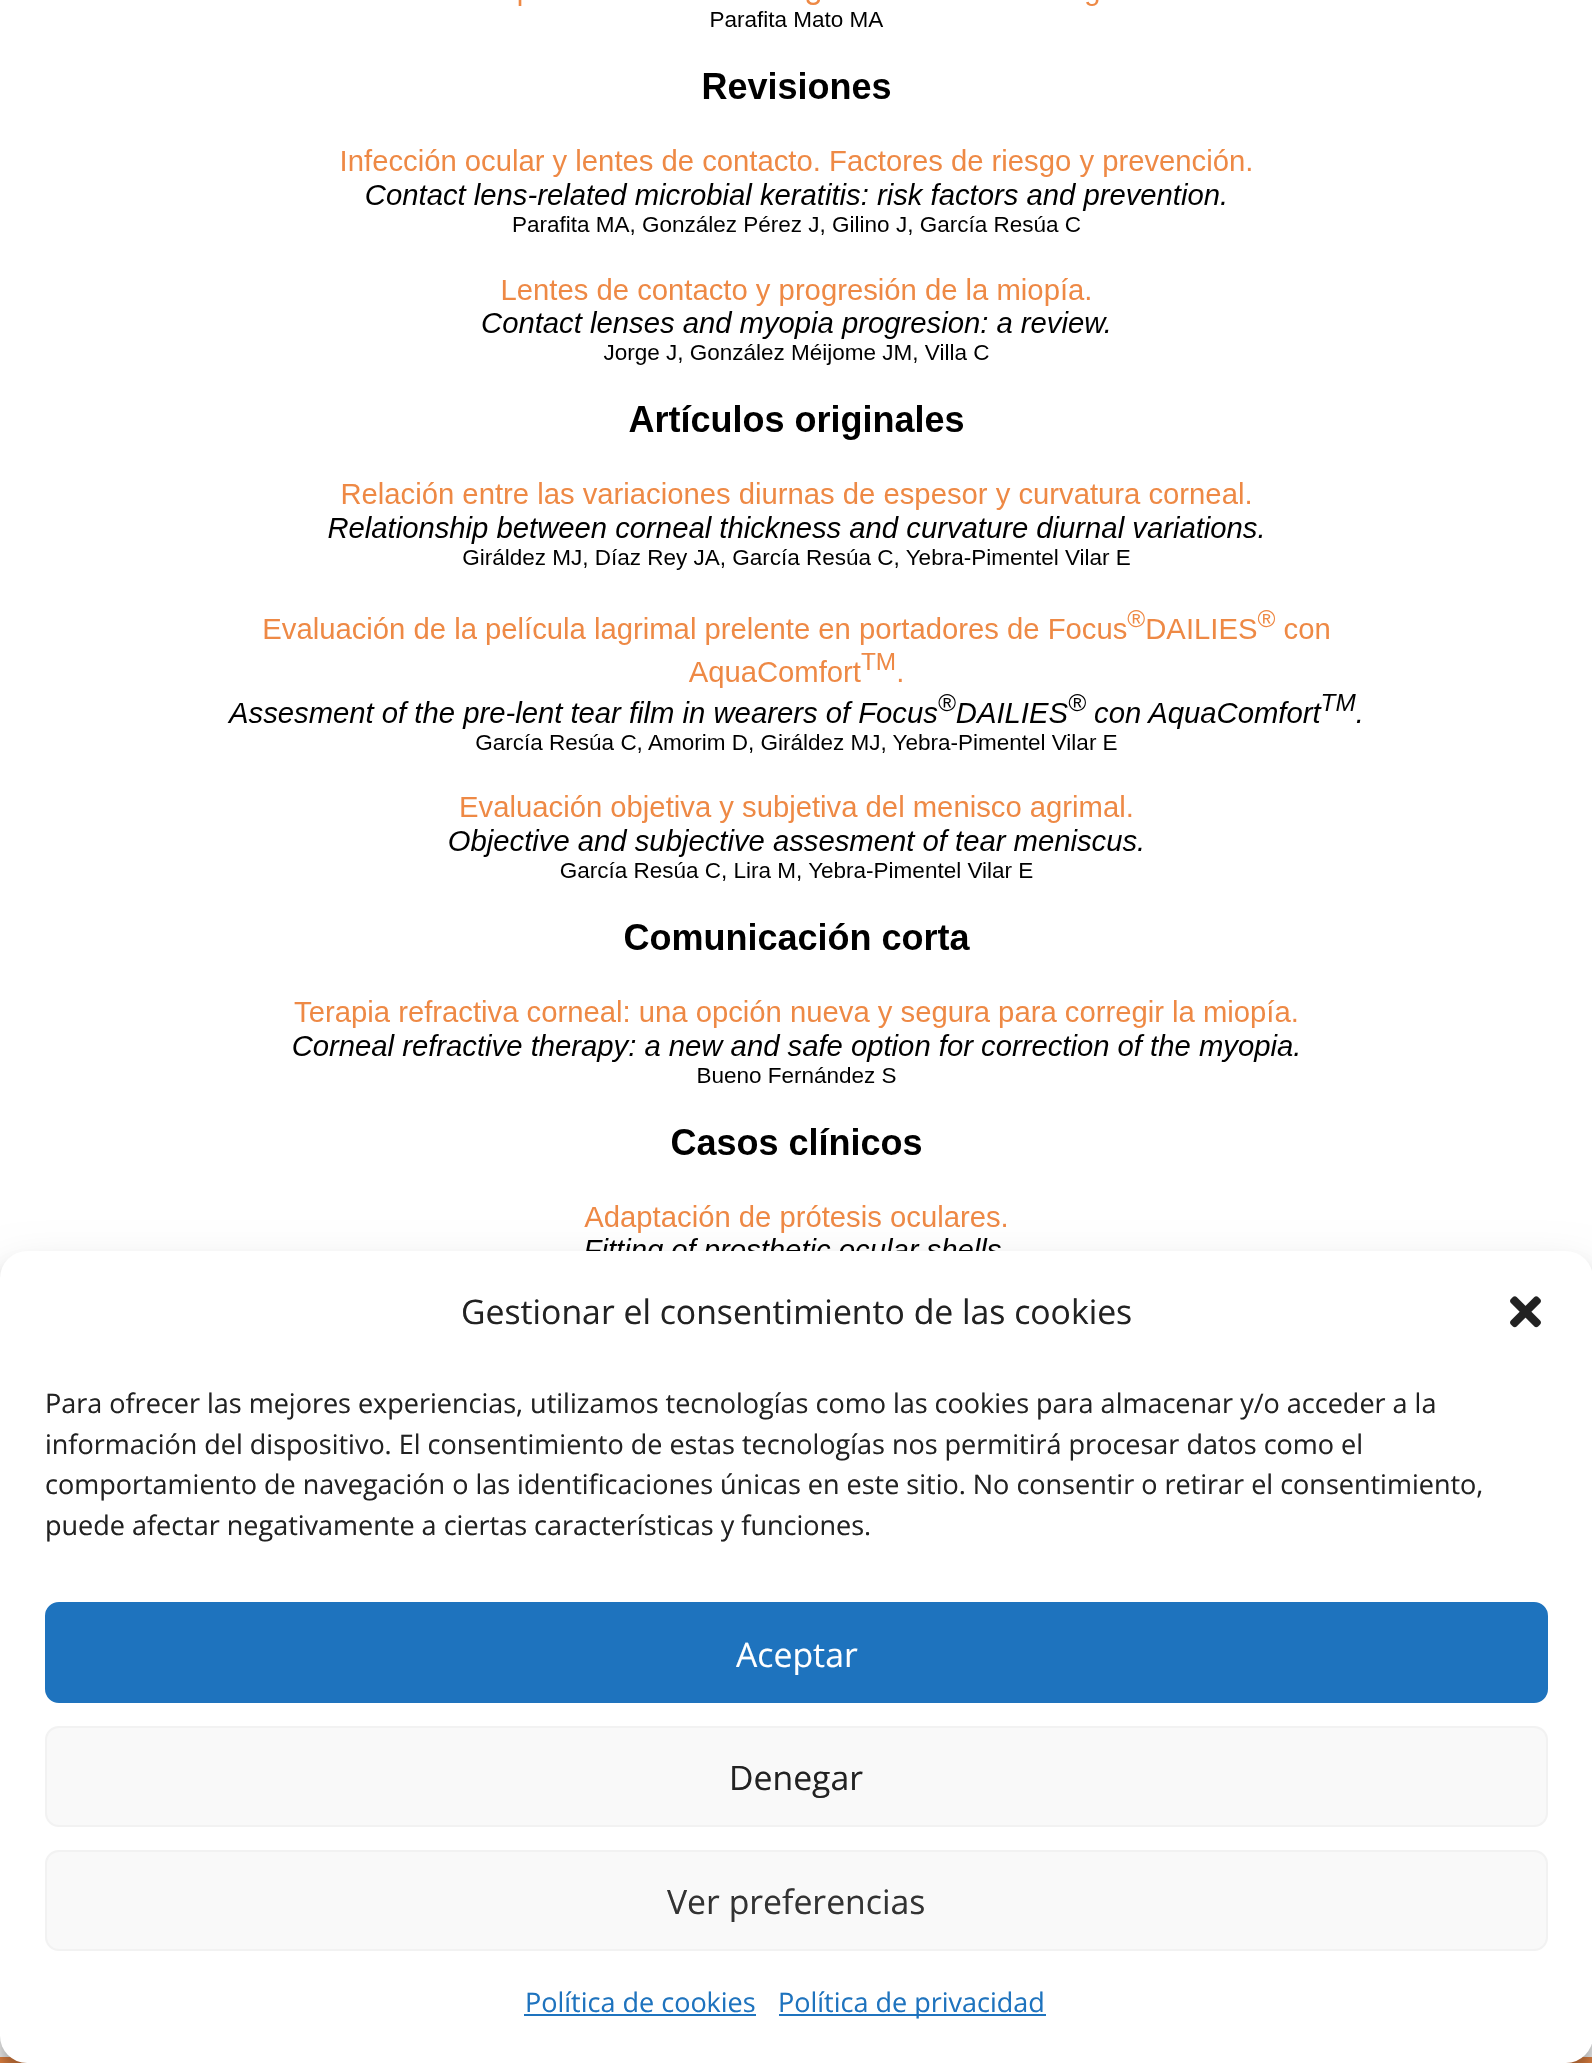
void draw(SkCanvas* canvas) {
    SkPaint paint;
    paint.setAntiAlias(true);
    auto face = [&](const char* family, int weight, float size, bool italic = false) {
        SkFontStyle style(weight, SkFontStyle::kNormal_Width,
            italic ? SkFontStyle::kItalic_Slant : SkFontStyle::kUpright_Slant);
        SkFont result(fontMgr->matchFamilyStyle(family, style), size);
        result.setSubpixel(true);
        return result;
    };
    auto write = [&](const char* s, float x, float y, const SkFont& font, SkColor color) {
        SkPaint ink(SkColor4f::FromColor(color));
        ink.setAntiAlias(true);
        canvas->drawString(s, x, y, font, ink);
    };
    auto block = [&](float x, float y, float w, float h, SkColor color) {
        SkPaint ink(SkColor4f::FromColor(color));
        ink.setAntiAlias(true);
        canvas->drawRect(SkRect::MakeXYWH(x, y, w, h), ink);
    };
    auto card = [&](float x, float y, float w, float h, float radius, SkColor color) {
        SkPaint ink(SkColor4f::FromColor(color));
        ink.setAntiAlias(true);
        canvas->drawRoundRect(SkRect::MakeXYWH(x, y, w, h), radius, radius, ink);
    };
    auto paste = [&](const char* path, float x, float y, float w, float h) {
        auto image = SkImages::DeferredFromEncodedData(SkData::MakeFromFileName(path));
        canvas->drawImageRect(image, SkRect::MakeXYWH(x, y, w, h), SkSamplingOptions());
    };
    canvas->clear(SK_ColorWHITE);
    paste("pic1.png", 227, 0, 1134, 1251);
    block(0, 2057, 1592, 6, SkColorSetRGB(238, 137, 69));
    paint.setColor(SkColorSetARGB(59, 0, 0, 0));
    paint.setMaskFilter(SkMaskFilter::MakeBlur(kNormal_SkBlurStyle, 7));
    canvas->drawRoundRect(SkRect::MakeXYWH(0, 1265, 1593, 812), 27, 27, paint);
    paint.setMaskFilter(nullptr);
    paint.setColor(SkColorSetARGB(48, 0, 0, 0));
    paint.setMaskFilter(SkMaskFilter::MakeBlur(kNormal_SkBlurStyle, 22.5f));
    canvas->drawRoundRect(SkRect::MakeXYWH(0, 1274, 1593, 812), 27, 27, paint);
    paint.setMaskFilter(nullptr);
    card(0, 1251, 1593, 812, 27, SK_ColorWHITE);
    auto kFont1 = face("Open Sans", 400, 33.75f);
    write("Gestionar el consentimiento de las cookies", 461, 1324, kFont1, SkColorSetRGB(34, 34, 34));
    paste("pic2.png", 1510, 1296, 31, 32);
    auto kFont2 = face("Open Sans", 400, 27);
    write("Para ofrecer las mejores experiencias, utilizamos tecnologías como las cookies para almacenar y/o acceder a la", 45, 1413, kFont2, SkColorSetRGB(34, 34, 34));
    write("información del dispositivo. El consentimiento de estas tecnologías nos permitirá procesar datos como el", 45, 1454, kFont2, SkColorSetRGB(34, 34, 34));
    write("comportamiento de navegación o las identificaciones únicas en este sitio. No consentir o retirar el consentimiento,", 45, 1494, kFont2, SkColorSetRGB(34, 34, 34));
    write("puede afectar negativamente a ciertas características y funciones.", 45, 1535, kFont2, SkColorSetRGB(34, 34, 34));
    paint.setColor(SkColorSetRGB(30, 115, 190));
    canvas->drawRoundRect(SkRect::MakeXYWH(46, 1603, 1501, 99), 13, 13, paint);
    paint.setStyle(SkPaint::kStroke_Style);
    paint.setStrokeWidth(2);
    canvas->drawRoundRect(SkRect::MakeXYWH(46, 1603, 1501, 99), 13, 13, paint);
    write("Aceptar", 736, 1667, kFont1, SK_ColorWHITE);
    paint.setStyle(SkPaint::kFill_Style);
    paint.setColor(SkColorSetRGB(249, 249, 249));
    canvas->drawRoundRect(SkRect::MakeXYWH(46, 1727, 1501, 99), 13, 13, paint);
    paint.setStyle(SkPaint::kStroke_Style);
    paint.setColor(SkColorSetRGB(242, 242, 242));
    canvas->drawRoundRect(SkRect::MakeXYWH(46, 1727, 1501, 99), 13, 13, paint);
    write("Denegar", 729, 1790, kFont1, SkColorSetRGB(34, 34, 34));
    paint.setStyle(SkPaint::kFill_Style);
    paint.setColor(SkColorSetRGB(249, 249, 249));
    canvas->drawRoundRect(SkRect::MakeXYWH(46, 1851, 1501, 99), 13, 13, paint);
    paint.setStyle(SkPaint::kStroke_Style);
    paint.setColor(SkColorSetRGB(242, 242, 242));
    canvas->drawRoundRect(SkRect::MakeXYWH(46, 1851, 1501, 99), 13, 13, paint);
    write("Ver preferencias", 667, 1914, kFont1, SkColorSetRGB(51, 51, 51));
    write("Política de cookies", 525, 2012, kFont2, SkColorSetRGB(30, 115, 190));
    block(524, 2014, 232, 2, SkColorSetRGB(30, 115, 190));
    block(779, 2014, 267, 2, SkColorSetRGB(30, 115, 190));
    write("Política de privacidad", 778, 2012, kFont2, SkColorSetRGB(30, 115, 190));
}
